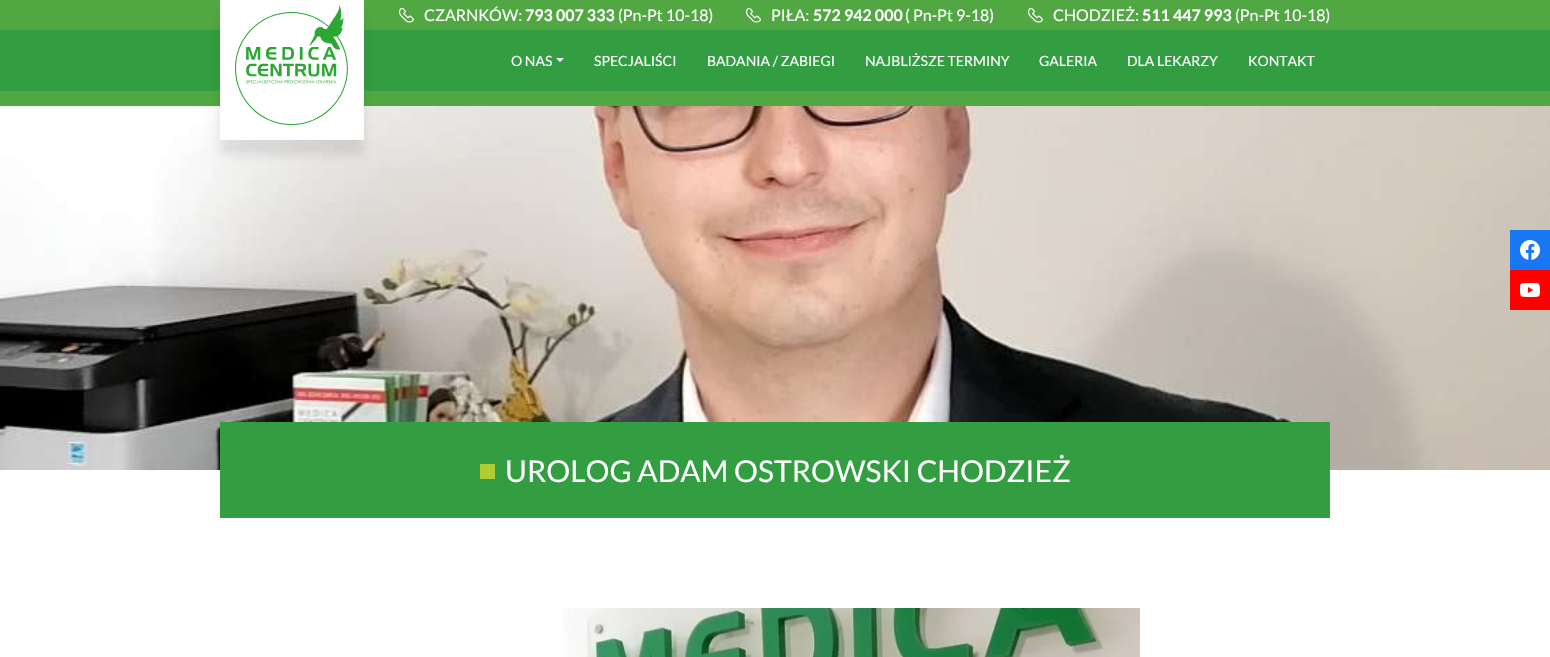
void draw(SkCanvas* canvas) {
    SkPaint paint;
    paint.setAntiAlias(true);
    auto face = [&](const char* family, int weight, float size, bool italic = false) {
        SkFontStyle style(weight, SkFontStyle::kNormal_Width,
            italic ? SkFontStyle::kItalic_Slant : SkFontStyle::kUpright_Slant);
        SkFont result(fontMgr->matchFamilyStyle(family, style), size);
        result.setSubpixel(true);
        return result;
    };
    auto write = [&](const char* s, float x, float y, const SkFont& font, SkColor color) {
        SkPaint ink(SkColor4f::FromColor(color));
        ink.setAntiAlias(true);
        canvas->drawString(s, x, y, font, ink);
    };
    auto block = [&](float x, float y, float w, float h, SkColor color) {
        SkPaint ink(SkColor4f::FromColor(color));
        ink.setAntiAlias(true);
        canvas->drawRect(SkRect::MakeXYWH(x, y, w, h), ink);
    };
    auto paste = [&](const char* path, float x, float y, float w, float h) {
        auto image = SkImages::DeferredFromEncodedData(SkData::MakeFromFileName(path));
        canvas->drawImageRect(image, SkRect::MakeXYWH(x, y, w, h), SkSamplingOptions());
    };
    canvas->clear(SK_ColorWHITE);
    block(0, 30, 1550, 61, SkColorSetRGB(51, 157, 66));
    block(0, 0, 1550, 30, SkColorSetRGB(81, 168, 66));
    paste("pic1.png", 399, 8, 15, 15);
    auto kFont1 = face("Lato", 400, 16);
    write("CZARNKÓW:", 424, 21, kFont1, SK_ColorWHITE);
    auto kFont2 = face("Lato", 700, 16);
    write("793 007 333", 525, 21, kFont2, SK_ColorWHITE);
    write("(Pn-Pt 10-18)", 618, 21, kFont1, SK_ColorWHITE);
    paste("pic1.png", 746, 8, 15, 15);
    write("PIŁA:", 771, 21, kFont1, SK_ColorWHITE);
    write("572 942 000", 813, 21, kFont2, SK_ColorWHITE);
    write("( Pn-Pt 9-18)", 905, 21, kFont1, SK_ColorWHITE);
    paste("pic1.png", 1028, 8, 15, 15);
    write("CHODZIEŻ:", 1053, 21, kFont1, SK_ColorWHITE);
    write("511 447 993", 1142, 21, kFont2, SK_ColorWHITE);
    write("(Pn-Pt 10-18)", 1235, 21, kFont1, SK_ColorWHITE);
    block(0, 91, 1550, 15, SkColorSetRGB(81, 168, 66));
    paste("pic6.png", 0, 106, 1550, 364);
    paint.setColor(SkColorSetARGB(26, 0, 0, 0));
    paint.setMaskFilter(SkMaskFilter::MakeBlur(kNormal_SkBlurStyle, 5));
    canvas->drawRect(SkRect::MakeXYWH(220, 15, 144, 140), paint);
    paint.setMaskFilter(nullptr);
    block(220, 0, 144, 140, SK_ColorWHITE);
    paste("pic2.png", 235, 5, 113, 120);
    auto kFont3 = face("Lato", 400, 14);
    write("O NAS", 511, 66, kFont3, SK_ColorWHITE);
    paint.setColor(SK_ColorWHITE);
    canvas->drawPath(SkPathBuilder().moveTo(556, 58).lineTo(564, 58).lineTo(560, 62).close().detach(), paint);
    write("SPECJALIŚCI", 594, 66, kFont3, SK_ColorWHITE);
    write("BADANIA / ZABIEGI", 707, 66, kFont3, SK_ColorWHITE);
    write("NAJBLIŻSZE TERMINY", 865, 66, kFont3, SK_ColorWHITE);
    write("GALERIA", 1039, 66, kFont3, SK_ColorWHITE);
    write("DLA LEKARZY", 1127, 66, kFont3, SK_ColorWHITE);
    write("KONTAKT", 1248, 66, kFont3, SK_ColorWHITE);
    paste("pic3.png", 1510, 230, 40, 40);
    paste("pic4.png", 1510, 270, 40, 40);
    block(220, 422, 1110, 96, SkColorSetRGB(51, 157, 66));
    block(480, 464, 15, 15, SkColorSetRGB(177, 203, 51));
    auto kFont4 = face("Lato", 400, 30);
    write("UROLOG ADAM OSTROWSKI CHODZIEŻ", 505, 482, kFont4, SK_ColorWHITE);
    paste("pic5.png", 563, 608, 577, 49);
}
